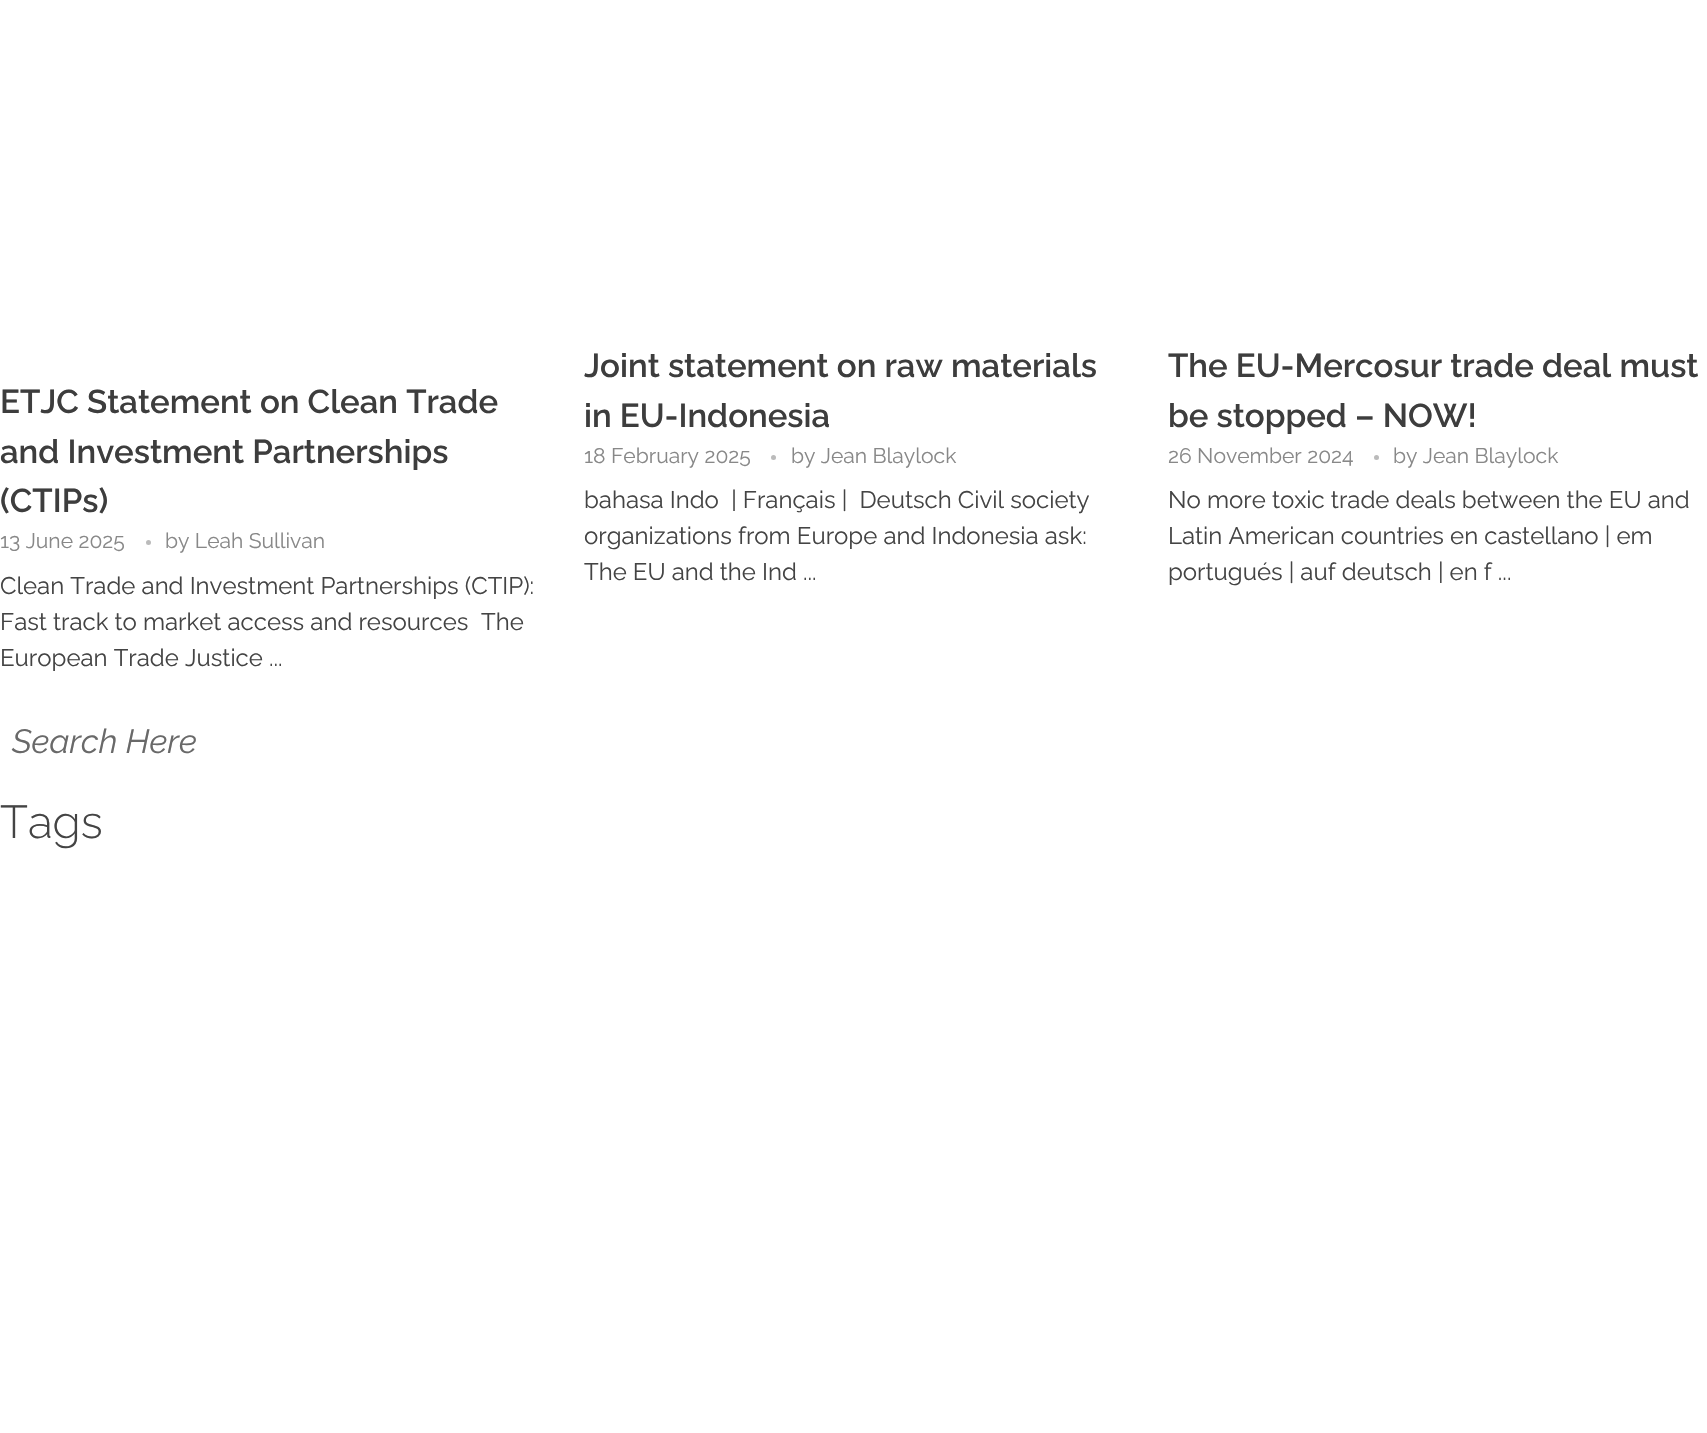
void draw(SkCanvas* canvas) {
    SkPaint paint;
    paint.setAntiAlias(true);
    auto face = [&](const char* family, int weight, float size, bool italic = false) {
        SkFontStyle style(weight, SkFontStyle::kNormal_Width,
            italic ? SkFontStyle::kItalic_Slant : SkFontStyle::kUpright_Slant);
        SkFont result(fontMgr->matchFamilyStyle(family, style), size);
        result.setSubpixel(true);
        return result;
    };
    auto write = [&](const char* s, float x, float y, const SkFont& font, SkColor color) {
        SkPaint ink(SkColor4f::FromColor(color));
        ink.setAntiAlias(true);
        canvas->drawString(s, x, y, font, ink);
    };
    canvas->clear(SK_ColorWHITE);
    auto kFont1 = face("Raleway", 600, 33);
    write("ETJC Statement on Clean Trade", 0, 413, kFont1, SkColorSetRGB(61, 61, 61));
    write("and Investment Partnerships", 0, 463, kFont1, SkColorSetRGB(61, 61, 61));
    write("(CTIPs)", 0, 512, kFont1, SkColorSetRGB(61, 61, 61));
    auto kFont2 = face("Raleway", 400, 21.1f);
    write("13 June 2025", 0, 548, kFont2, SkColorSetRGB(136, 136, 136));
    paint.setColor(SkColorSetRGB(187, 187, 187));
    canvas->drawCircle(148.5f, 542.5f, 2.5f, paint);
    write("by Leah Sullivan", 165, 548, kFont2, SkColorSetRGB(136, 136, 136));
    auto kFont3 = face("Raleway", 400, 24);
    write("Clean Trade and Investment Partnerships (CTIP):", 0, 594, kFont3, SkColorSetRGB(68, 68, 68));
    write("Fast track to market access and resources", 0, 630, kFont3, SkColorSetRGB(68, 68, 68));
    write("The", 481, 630, kFont3, SkColorSetRGB(68, 68, 68));
    write("European Trade Justice ...", 0, 666, kFont3, SkColorSetRGB(68, 68, 68));
    write("Joint statement on raw materials", 584, 377, kFont1, SkColorSetRGB(61, 61, 61));
    write("in EU-Indonesia", 584, 427, kFont1, SkColorSetRGB(61, 61, 61));
    write("18 February 2025", 584, 463, kFont2, SkColorSetRGB(136, 136, 136));
    canvas->drawCircle(773.5f, 457.5f, 2.5f, paint);
    write("by Jean Blaylock", 791, 463, kFont2, SkColorSetRGB(136, 136, 136));
    write("bahasa Indo  | Français |  Deutsch Civil society", 584, 508, kFont3, SkColorSetRGB(68, 68, 68));
    write("organizations from Europe and Indonesia ask:", 584, 544, kFont3, SkColorSetRGB(68, 68, 68));
    write("The EU and the Ind ...", 584, 580, kFont3, SkColorSetRGB(68, 68, 68));
    write("The EU-Mercosur trade deal must", 1168, 377, kFont1, SkColorSetRGB(61, 61, 61));
    write("be stopped – NOW!", 1168, 427, kFont1, SkColorSetRGB(61, 61, 61));
    write("26 November 2024", 1168, 463, kFont2, SkColorSetRGB(136, 136, 136));
    canvas->drawCircle(1376.5f, 457.5f, 2.5f, paint);
    write("by Jean Blaylock", 1393, 463, kFont2, SkColorSetRGB(136, 136, 136));
    write("No more toxic trade deals between the EU and", 1168, 508, kFont3, SkColorSetRGB(68, 68, 68));
    write("Latin American countries en castellano | em", 1168, 544, kFont3, SkColorSetRGB(68, 68, 68));
    write("portugués | auf deutsch | en f ...", 1168, 580, kFont3, SkColorSetRGB(68, 68, 68));
    auto kFont4 = face("Raleway", 400, 33.5f, true);
    write("Search Here", 12, 753, kFont4, SkColorSetRGB(105, 105, 105));
    auto kFont5 = face("Raleway", 300, 46);
    write("Tags", 0, 838, kFont5, SkColorSetRGB(68, 68, 68));
}
